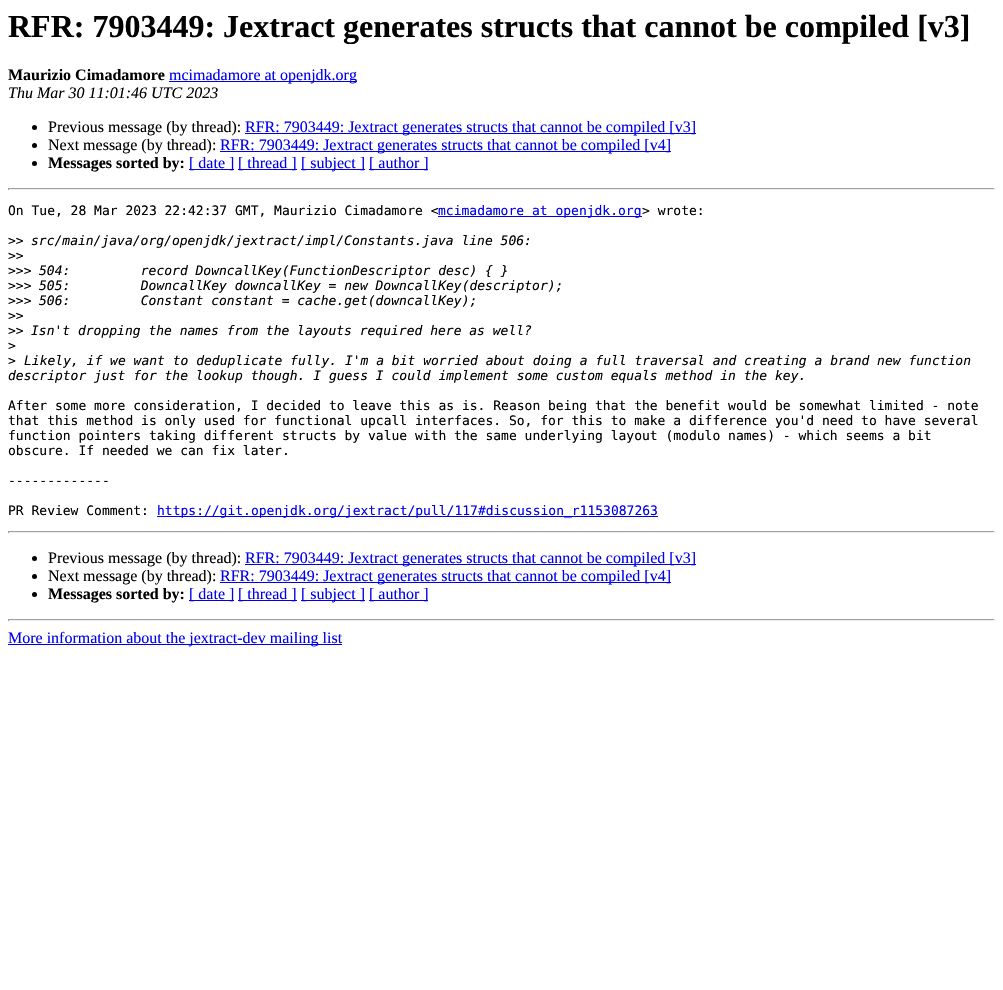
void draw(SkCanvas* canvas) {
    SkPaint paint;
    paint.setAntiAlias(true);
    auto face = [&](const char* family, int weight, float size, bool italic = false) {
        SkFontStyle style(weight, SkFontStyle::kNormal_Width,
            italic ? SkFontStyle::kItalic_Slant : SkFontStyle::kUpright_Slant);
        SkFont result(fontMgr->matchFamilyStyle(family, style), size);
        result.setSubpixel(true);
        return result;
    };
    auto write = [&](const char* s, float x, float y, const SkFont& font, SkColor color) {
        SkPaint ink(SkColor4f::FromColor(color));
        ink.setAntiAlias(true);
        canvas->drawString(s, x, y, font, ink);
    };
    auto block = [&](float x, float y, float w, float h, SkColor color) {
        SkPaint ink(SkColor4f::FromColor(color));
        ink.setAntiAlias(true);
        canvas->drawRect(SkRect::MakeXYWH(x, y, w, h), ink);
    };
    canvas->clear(SK_ColorWHITE);
    auto kFont1 = face("Liberation Serif", 700, 32);
    write("RFR: 7903449: Jextract generates structs that cannot be compiled [v3]", 8, 37, kFont1, SK_ColorBLACK);
    auto kFont2 = face("Liberation Serif", 700, 16);
    write("Maurizio Cimadamore", 8, 80, kFont2, SK_ColorBLACK);
    block(169, 81, 188, 1, SkColorSetRGB(0, 0, 238));
    auto kFont3 = face("Liberation Serif", 400, 16);
    write("mcimadamore at openjdk.org", 169, 80, kFont3, SkColorSetRGB(0, 0, 238));
    auto kFont4 = face("Liberation Serif", 400, 16, true);
    write("Thu Mar 30 11:01:46 UTC 2023", 8, 98, kFont4, SK_ColorBLACK);
    paint.setColor(SK_ColorBLACK);
    canvas->drawCircle(34.5f, 127.5f, 2.5f, paint);
    write("Previous message (by thread):", 48, 132, kFont3, SK_ColorBLACK);
    block(245, 133, 451, 1, SkColorSetRGB(0, 0, 238));
    write("RFR: 7903449: Jextract generates structs that cannot be compiled [v3]", 245, 132, kFont3, SkColorSetRGB(0, 0, 238));
    canvas->drawCircle(34.5f, 145.5f, 2.5f, paint);
    write("Next message (by thread):", 48, 150, kFont3, SK_ColorBLACK);
    block(220, 151, 451, 1, SkColorSetRGB(0, 0, 238));
    write("RFR: 7903449: Jextract generates structs that cannot be compiled [v4]", 220, 150, kFont3, SkColorSetRGB(0, 0, 238));
    canvas->drawCircle(34.5f, 163.5f, 2.5f, paint);
    write("Messages sorted by:", 48, 168, kFont2, SK_ColorBLACK);
    block(189, 169, 45, 1, SkColorSetRGB(0, 0, 238));
    write("[ date ]", 189, 168, kFont3, SkColorSetRGB(0, 0, 238));
    block(238, 169, 59, 1, SkColorSetRGB(0, 0, 238));
    write("[ thread ]", 238, 168, kFont3, SkColorSetRGB(0, 0, 238));
    block(301, 169, 64, 1, SkColorSetRGB(0, 0, 238));
    write("[ subject ]", 301, 168, kFont3, SkColorSetRGB(0, 0, 238));
    block(369, 169, 59, 1, SkColorSetRGB(0, 0, 238));
    write("[ author ]", 369, 168, kFont3, SkColorSetRGB(0, 0, 238));
    block(8, 188, 987, 1, SkColorSetRGB(159, 159, 159));
    block(994, 188, 1, 2, SkColorSetRGB(238, 238, 238));
    block(8, 189, 987, 1, SkColorSetRGB(238, 238, 238));
    block(8, 188, 1, 2, SkColorSetRGB(159, 159, 159));
    auto kFont5 = face("DejaVu Sans Mono", 400, 13);
    write("On Tue, 28 Mar 2023 22:42:37 GMT, Maurizio Cimadamore <", 8, 215, kFont5, SK_ColorBLACK);
    block(438, 216, 204, 1, SkColorSetRGB(0, 0, 238));
    write("mcimadamore at openjdk.org", 438, 215, kFont5, SkColorSetRGB(0, 0, 238));
    write("> wrote:", 642, 215, kFont5, SK_ColorBLACK);
    write(">>", 8, 245, kFont5, SK_ColorBLACK);
    auto kFont6 = face("DejaVu Sans Mono", 400, 13, true);
    write("src/main/java/org/openjdk/jextract/impl/Constants.java line 506:", 31, 245, kFont6, SK_ColorBLACK);
    write(">>", 8, 260, kFont5, SK_ColorBLACK);
    write(">>>", 8, 275, kFont5, SK_ColorBLACK);
    write("504:         record DowncallKey(FunctionDescriptor desc) { }", 39, 275, kFont6, SK_ColorBLACK);
    write(">>>", 8, 290, kFont5, SK_ColorBLACK);
    write("505:         DowncallKey downcallKey = new DowncallKey(descriptor);", 39, 290, kFont6, SK_ColorBLACK);
    write(">>>", 8, 305, kFont5, SK_ColorBLACK);
    write("506:         Constant constant = cache.get(downcallKey);", 39, 305, kFont6, SK_ColorBLACK);
    write(">>", 8, 320, kFont5, SK_ColorBLACK);
    write(">>", 8, 335, kFont5, SK_ColorBLACK);
    write("Isn't dropping the names from the layouts required here as well?", 31, 335, kFont6, SK_ColorBLACK);
    write(">", 8, 350, kFont5, SK_ColorBLACK);
    write(">", 8, 365, kFont5, SK_ColorBLACK);
    write("Likely, if we want to deduplicate fully. I'm a bit worried about doing a full traversal and creating a brand new function", 24, 365, kFont6, SK_ColorBLACK);
    write("descriptor just for the lookup though. I guess I could implement some custom equals method in the key.", 8, 380, kFont6, SK_ColorBLACK);
    write("After some more consideration, I decided to leave this as is. Reason being that the benefit would be somewhat limited - note", 8, 410, kFont5, SK_ColorBLACK);
    write("that this method is only used for functional upcall interfaces. So, for this to make a difference you'd need to have several", 8, 425, kFont5, SK_ColorBLACK);
    write("function pointers taking different structs by value with the same underlying layout (modulo names) - which seems a bit", 8, 440, kFont5, SK_ColorBLACK);
    write("obscure. If needed we can fix later.", 8, 455, kFont5, SK_ColorBLACK);
    write("-------------", 8, 485, kFont5, SK_ColorBLACK);
    write("PR Review Comment:", 8, 515, kFont5, SK_ColorBLACK);
    block(157, 516, 501, 1, SkColorSetRGB(0, 0, 238));
    write("https://git.openjdk.org/jextract/pull/117#discussion_r1153087263", 157, 515, kFont5, SkColorSetRGB(0, 0, 238));
    block(8, 531, 987, 1, SkColorSetRGB(159, 159, 159));
    block(994, 531, 1, 2, SkColorSetRGB(238, 238, 238));
    block(8, 532, 987, 1, SkColorSetRGB(238, 238, 238));
    block(8, 531, 1, 2, SkColorSetRGB(159, 159, 159));
    canvas->drawCircle(34.5f, 558.5f, 2.5f, paint);
    write("Previous message (by thread):", 48, 563, kFont3, SK_ColorBLACK);
    block(245, 564, 451, 1, SkColorSetRGB(0, 0, 238));
    write("RFR: 7903449: Jextract generates structs that cannot be compiled [v3]", 245, 563, kFont3, SkColorSetRGB(0, 0, 238));
    canvas->drawCircle(34.5f, 576.5f, 2.5f, paint);
    write("Next message (by thread):", 48, 581, kFont3, SK_ColorBLACK);
    block(220, 582, 451, 1, SkColorSetRGB(0, 0, 238));
    write("RFR: 7903449: Jextract generates structs that cannot be compiled [v4]", 220, 581, kFont3, SkColorSetRGB(0, 0, 238));
    canvas->drawCircle(34.5f, 594.5f, 2.5f, paint);
    write("Messages sorted by:", 48, 599, kFont2, SK_ColorBLACK);
    block(189, 600, 45, 1, SkColorSetRGB(0, 0, 238));
    write("[ date ]", 189, 599, kFont3, SkColorSetRGB(0, 0, 238));
    block(238, 600, 59, 1, SkColorSetRGB(0, 0, 238));
    write("[ thread ]", 238, 599, kFont3, SkColorSetRGB(0, 0, 238));
    block(301, 600, 64, 1, SkColorSetRGB(0, 0, 238));
    write("[ subject ]", 301, 599, kFont3, SkColorSetRGB(0, 0, 238));
    block(369, 600, 59, 1, SkColorSetRGB(0, 0, 238));
    write("[ author ]", 369, 599, kFont3, SkColorSetRGB(0, 0, 238));
    block(8, 619, 987, 1, SkColorSetRGB(159, 159, 159));
    block(994, 619, 1, 2, SkColorSetRGB(238, 238, 238));
    block(8, 620, 987, 1, SkColorSetRGB(238, 238, 238));
    block(8, 619, 1, 2, SkColorSetRGB(159, 159, 159));
    block(8, 644, 334, 1, SkColorSetRGB(0, 0, 238));
    write("More information about the jextract-dev mailing list", 8, 643, kFont3, SkColorSetRGB(0, 0, 238));
}
